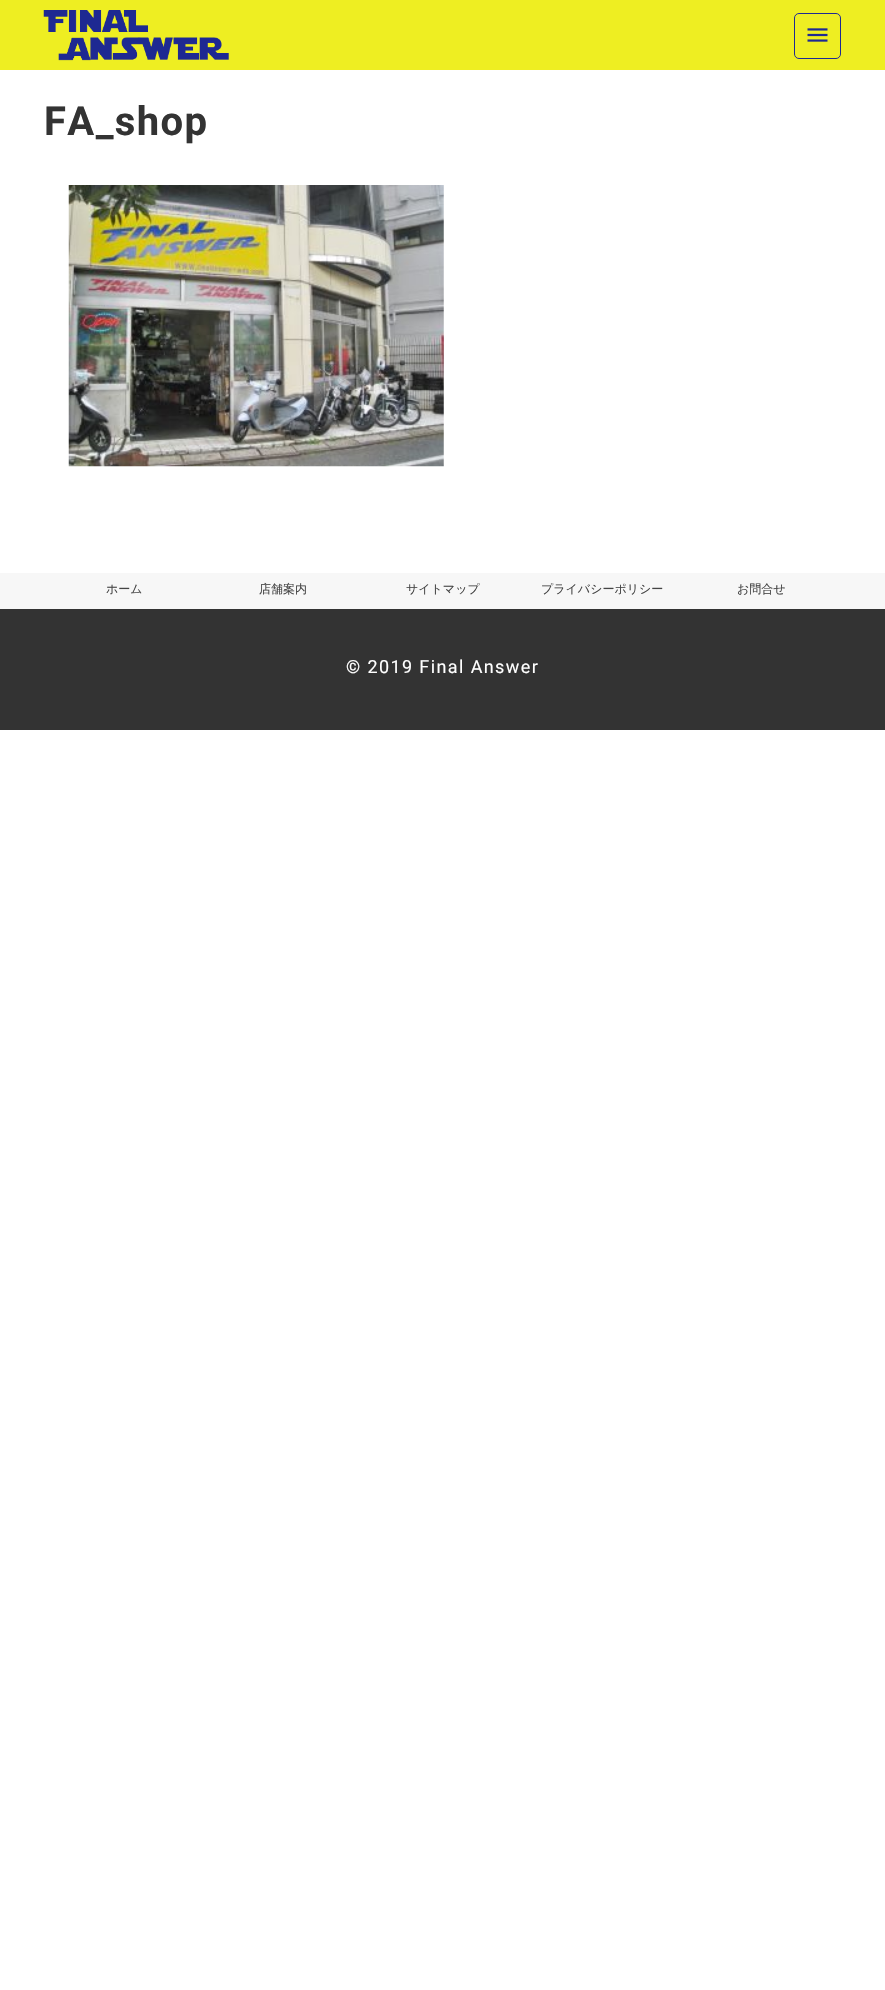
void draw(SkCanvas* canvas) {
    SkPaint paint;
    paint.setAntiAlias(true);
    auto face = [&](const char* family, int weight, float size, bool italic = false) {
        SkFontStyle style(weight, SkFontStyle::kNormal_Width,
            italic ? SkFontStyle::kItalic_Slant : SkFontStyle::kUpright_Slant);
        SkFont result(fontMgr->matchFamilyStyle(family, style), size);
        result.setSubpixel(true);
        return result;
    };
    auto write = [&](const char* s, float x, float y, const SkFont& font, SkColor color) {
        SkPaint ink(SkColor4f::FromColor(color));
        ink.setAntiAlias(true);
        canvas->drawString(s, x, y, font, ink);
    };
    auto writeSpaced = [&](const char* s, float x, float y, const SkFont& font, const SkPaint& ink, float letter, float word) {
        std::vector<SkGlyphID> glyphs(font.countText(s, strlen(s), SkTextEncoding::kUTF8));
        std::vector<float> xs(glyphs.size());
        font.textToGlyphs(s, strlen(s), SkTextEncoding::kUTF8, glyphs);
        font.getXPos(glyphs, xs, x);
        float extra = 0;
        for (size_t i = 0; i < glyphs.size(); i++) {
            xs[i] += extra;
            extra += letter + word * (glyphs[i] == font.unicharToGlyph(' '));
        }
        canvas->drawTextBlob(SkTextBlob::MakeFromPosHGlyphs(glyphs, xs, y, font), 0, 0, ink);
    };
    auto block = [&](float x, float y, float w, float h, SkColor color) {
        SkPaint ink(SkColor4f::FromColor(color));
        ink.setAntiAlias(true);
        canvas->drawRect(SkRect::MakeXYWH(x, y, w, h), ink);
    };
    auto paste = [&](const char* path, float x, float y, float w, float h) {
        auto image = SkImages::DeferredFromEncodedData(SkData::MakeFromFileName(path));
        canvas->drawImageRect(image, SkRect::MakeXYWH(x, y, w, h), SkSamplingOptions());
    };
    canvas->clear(SK_ColorWHITE);
    block(0, 0, 885, 70, SkColorSetRGB(238, 238, 34));
    paste("pic1.png", 43, 10, 186, 51);
    paint.setStyle(SkPaint::kStroke_Style);
    paint.setStrokeWidth(1);
    paint.setColor(SkColorSetRGB(30, 41, 146));
    canvas->drawRoundRect(SkRect::MakeXYWH(794.5f, 13.5f, 46, 45), 4.5f, 4.5f, paint);
    paste("pic2.png", 807, 28, 21, 14);
    auto kFont1 = face("Roboto", 700, 40);
    paint.setStyle(SkPaint::kFill_Style);
    paint.setColor(SkColorSetRGB(51, 51, 51));
    writeSpaced("FA_shop", 44, 135, kFont1, paint, 1.4f, 0);
    paste("pic3.png", 68, 185, 376, 282);
    block(0, 573, 885, 36, SkColorSetRGB(247, 247, 247));
    auto kFont2 = face("WenQuanYi Zen Hei", 500, 12);
    write("ホーム", 106, 593, kFont2, SkColorSetRGB(68, 68, 68));
    write("店舗案内", 259, 593, kFont2, SkColorSetRGB(68, 68, 68));
    write("サイトマップ", 406, 593, kFont2, SkColorSetRGB(68, 68, 68));
    write("プライバシーポリシー", 541, 593, kFont2, SkColorSetRGB(68, 68, 68));
    write("お問合せ", 737, 593, kFont2, SkColorSetRGB(68, 68, 68));
    block(0, 609, 885, 121, SkColorSetRGB(51, 51, 51));
    auto kFont3 = face("Roboto", 400, 18);
    paint.setColor(SK_ColorWHITE);
    writeSpaced("© 2019 Final Answer", 346, 673, kFont3, paint, 1.4f, 0);
}
